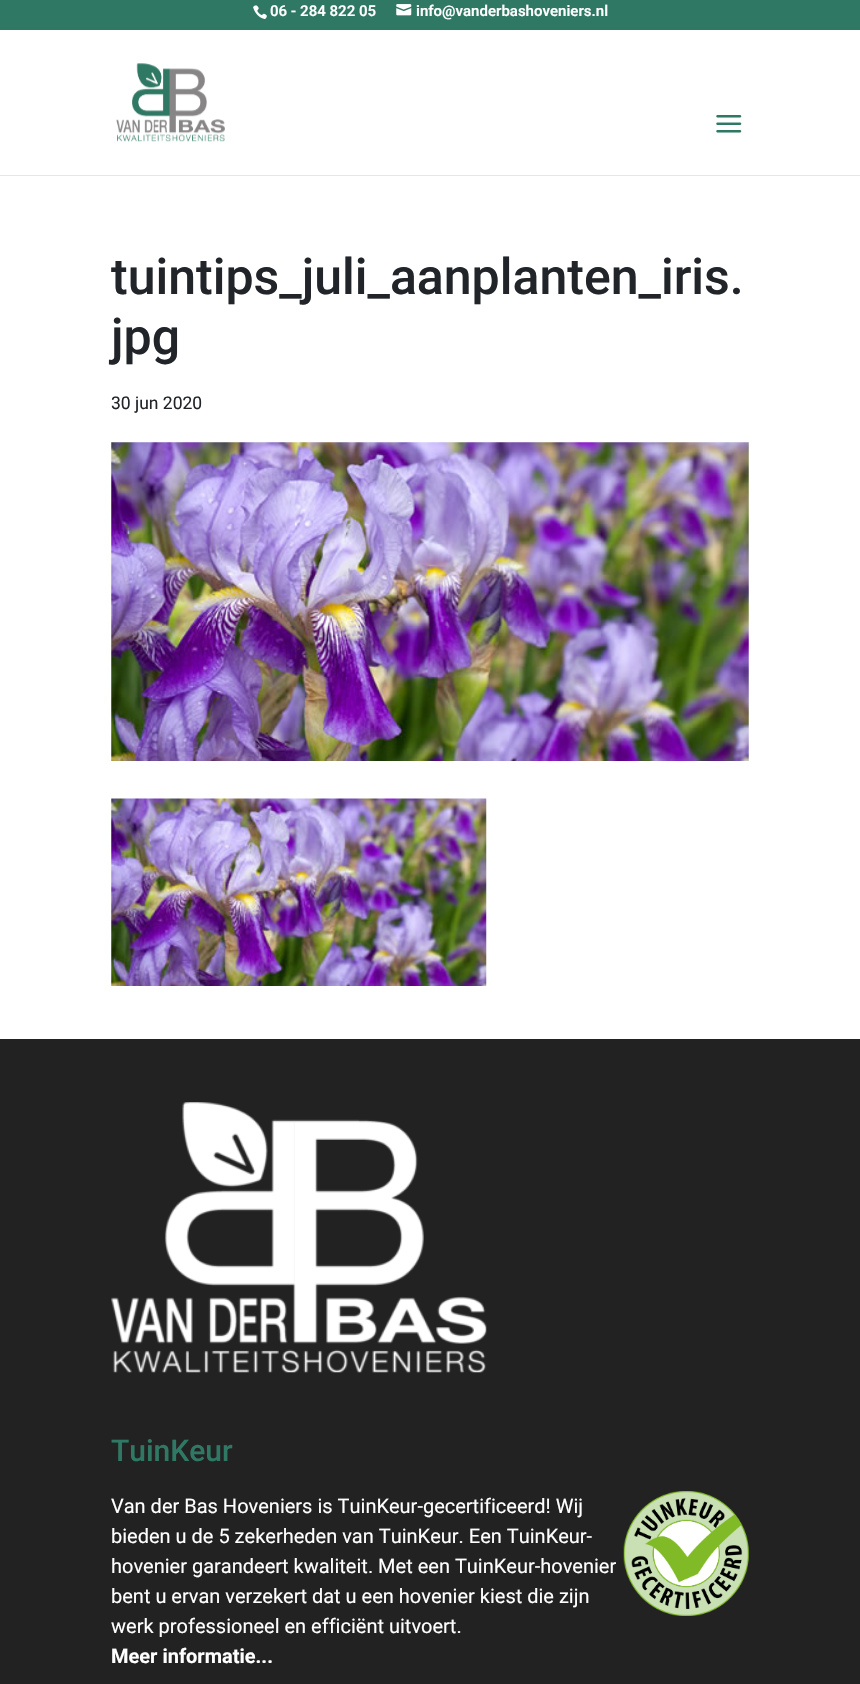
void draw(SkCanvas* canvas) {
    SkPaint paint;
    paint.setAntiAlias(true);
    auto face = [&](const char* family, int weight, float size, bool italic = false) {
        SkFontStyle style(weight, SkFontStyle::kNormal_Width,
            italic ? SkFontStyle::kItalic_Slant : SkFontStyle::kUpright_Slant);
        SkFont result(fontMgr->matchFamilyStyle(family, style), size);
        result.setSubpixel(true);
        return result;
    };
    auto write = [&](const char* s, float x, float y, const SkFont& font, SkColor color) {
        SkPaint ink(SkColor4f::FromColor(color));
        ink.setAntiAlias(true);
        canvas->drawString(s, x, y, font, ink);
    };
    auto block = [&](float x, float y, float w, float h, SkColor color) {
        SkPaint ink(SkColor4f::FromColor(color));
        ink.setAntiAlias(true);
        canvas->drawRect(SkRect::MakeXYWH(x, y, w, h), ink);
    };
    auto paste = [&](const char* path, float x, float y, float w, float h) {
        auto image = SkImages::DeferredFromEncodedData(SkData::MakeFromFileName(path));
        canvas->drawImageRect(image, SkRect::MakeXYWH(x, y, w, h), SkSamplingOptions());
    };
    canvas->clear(SK_ColorWHITE);
    block(0, 0, 860, 30, SkColorSetRGB(47, 120, 99));
    paste("pic1.png", 253, 5, 14, 14);
    auto kFont1 = face("Roboto", 600, 15);
    write("06 - 284 822 05", 270, 16, kFont1, SK_ColorWHITE);
    paste("pic2.png", 396, 4, 16, 12);
    write("info@vanderbashoveniers.nl", 416, 16, kFont1, SK_ColorWHITE);
    block(0, 175, 860, 1, SkColorSetRGB(230, 230, 230));
    paste("pic3.png", 116, 63, 109, 79);
    paste("pic4.png", 716, 115, 26, 18);
    auto kFont2 = face("Roboto", 500, 50);
    write("tuintips_juli_aanplanten_iris.", 111, 294, kFont2, SkColorSetRGB(33, 37, 41));
    write("jpg", 111, 354, kFont2, SkColorSetRGB(33, 37, 41));
    auto kFont3 = face("Roboto", 400, 17.5f);
    write("30 jun 2020", 111, 409, kFont3, SkColorSetRGB(33, 37, 41));
    paste("pic5.png", 111, 442, 638, 319);
    paste("pic6.png", 111, 798, 376, 188);
    block(0, 1039, 860, 645, SkColorSetRGB(34, 34, 34));
    paste("pic7.png", 111, 1102, 376, 271);
    auto kFont4 = face("Roboto", 500, 30);
    write("TuinKeur", 111, 1461, kFont4, SkColorSetRGB(47, 120, 99));
    auto kFont5 = face("Roboto", 400, 20);
    write("Van der Bas Hoveniers is TuinKeur-gecertificeerd! Wij", 111, 1513, kFont5, SK_ColorWHITE);
    paste("pic8.png", 623, 1491, 126, 125);
    write("bieden u de 5 zekerheden van TuinKeur. Een TuinKeur-", 111, 1543, kFont5, SK_ColorWHITE);
    write("hovenier garandeert kwaliteit. Met een TuinKeur-hovenier", 111, 1573, kFont5, SK_ColorWHITE);
    write("bent u ervan verzekert dat u een hovenier kiest die zijn", 111, 1603, kFont5, SK_ColorWHITE);
    write("werk professioneel en efficiënt uitvoert.", 111, 1633, kFont5, SK_ColorWHITE);
    auto kFont6 = face("Roboto", 700, 20);
    write("Meer informatie...", 111, 1663, kFont6, SK_ColorWHITE);
}
